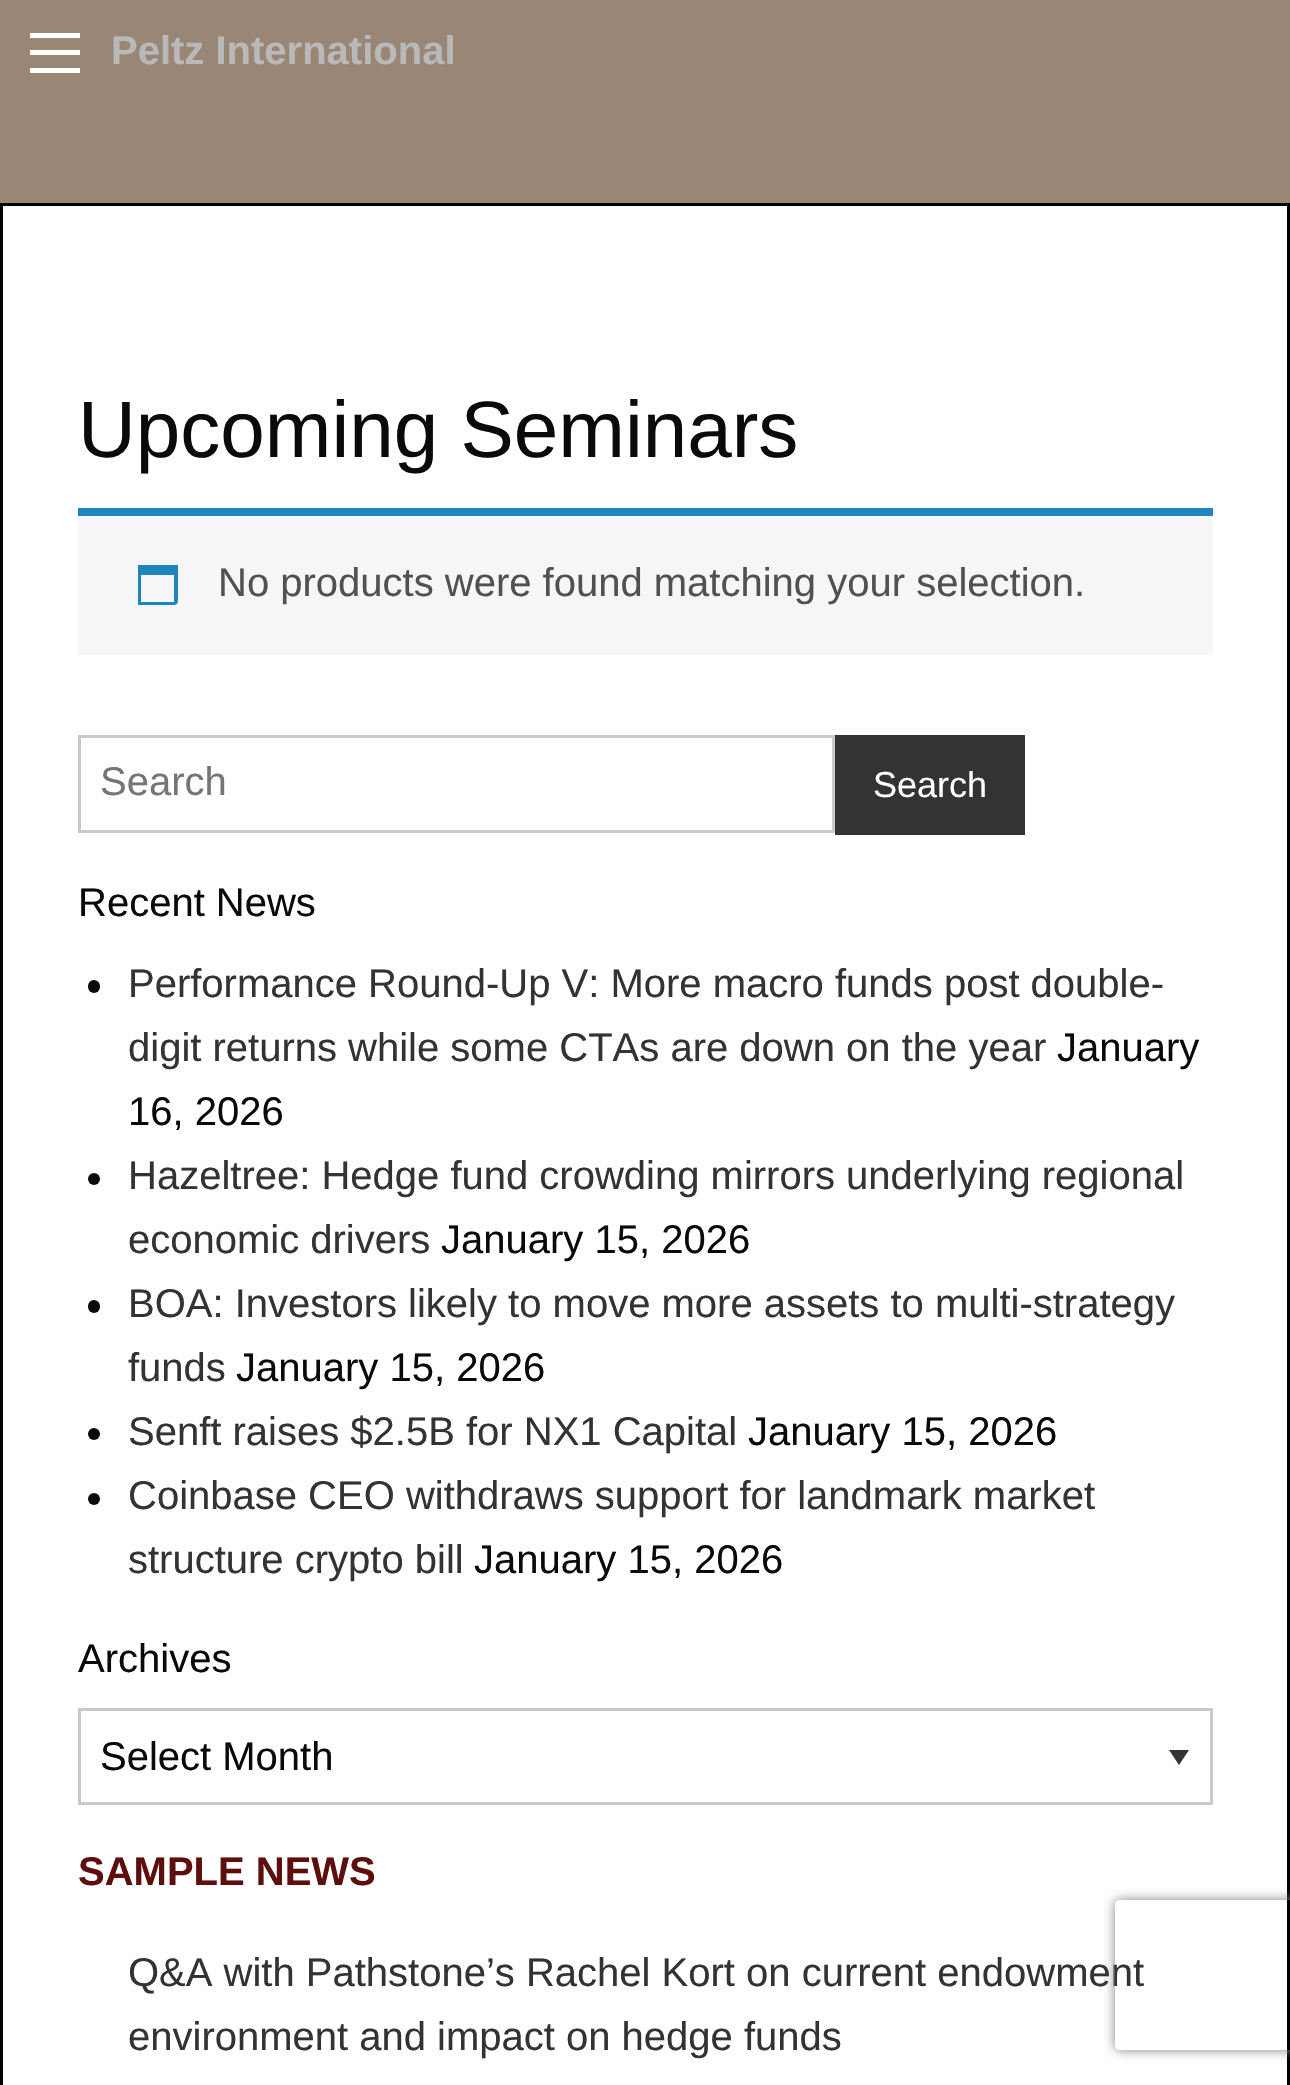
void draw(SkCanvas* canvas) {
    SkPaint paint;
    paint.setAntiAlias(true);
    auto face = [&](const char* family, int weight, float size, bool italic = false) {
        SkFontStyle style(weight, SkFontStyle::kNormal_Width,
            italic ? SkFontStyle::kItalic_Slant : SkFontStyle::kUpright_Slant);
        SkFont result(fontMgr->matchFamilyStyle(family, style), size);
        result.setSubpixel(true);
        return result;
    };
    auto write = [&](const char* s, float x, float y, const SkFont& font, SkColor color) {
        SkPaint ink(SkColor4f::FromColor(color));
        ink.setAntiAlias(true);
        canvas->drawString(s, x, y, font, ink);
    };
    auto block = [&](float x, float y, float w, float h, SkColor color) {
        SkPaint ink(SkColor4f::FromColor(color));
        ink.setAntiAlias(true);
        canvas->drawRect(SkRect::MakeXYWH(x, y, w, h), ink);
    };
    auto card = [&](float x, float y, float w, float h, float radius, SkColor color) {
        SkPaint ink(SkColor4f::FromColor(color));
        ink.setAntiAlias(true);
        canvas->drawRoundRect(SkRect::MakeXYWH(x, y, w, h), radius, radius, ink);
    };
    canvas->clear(SkColorSetRGB(153, 134, 117));
    block(30, 68, 50, 5, SkColorSetRGB(254, 254, 254));
    block(30, 50, 50, 5, SkColorSetRGB(254, 254, 254));
    block(30, 33, 50, 5, SkColorSetRGB(254, 254, 254));
    auto kFont1 = face("Liberation Sans", 700, 40);
    write("Peltz International", 111, 64, kFont1, SkColorSetRGB(185, 185, 185));
    paint.setColor(SK_ColorWHITE);
    canvas->drawRect(SkRect::MakeXYWH(1.5f, 204.5f, 1287, 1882), paint);
    paint.setStyle(SkPaint::kStroke_Style);
    paint.setStrokeWidth(3);
    paint.setColor(SK_ColorBLACK);
    canvas->drawRect(SkRect::MakeXYWH(1.5f, 204.5f, 1287, 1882), paint);
    auto kFont2 = face("Liberation Sans", 400, 80);
    write("Upcoming Seminars", 78, 457, kFont2, SkColorSetRGB(10, 10, 10));
    block(78, 516, 1135, 139, SkColorSetRGB(246, 245, 248));
    block(78, 508, 1135, 8, SkColorSetRGB(30, 133, 190));
    paint.setStyle(SkPaint::kFill_Style);
    paint.setColor(SkColorSetRGB(30, 133, 190));
    canvas->drawPath(SkPathBuilder().moveTo(174, 575).lineTo(141, 575).lineTo(141, 602).lineTo(174, 602).close().moveTo(178, 565).lineTo(178, 596).cubicTo(178, 606, 178, 605, 168, 605).lineTo(138, 605).lineTo(138, 565).close().detach(), paint);
    auto kFont3 = face("Liberation Sans", 400, 40);
    write("No products were found matching your selection.", 218, 596, kFont3, SkColorSetRGB(81, 81, 81));
    paint.setStyle(SkPaint::kStroke_Style);
    paint.setColor(SkColorSetRGB(202, 202, 202));
    canvas->drawRect(SkRect::MakeXYWH(79.5f, 736.5f, 754, 95), paint);
    write("Search", 100, 795, kFont3, SkColorSetRGB(117, 117, 117));
    block(835, 735, 190, 100, SkColorSetRGB(51, 51, 51));
    auto kFont4 = face("Liberation Sans", 400, 36);
    write("Search", 873, 797, kFont4, SK_ColorWHITE);
    write("Recent News", 78, 916, kFont3, SkColorSetRGB(10, 10, 10));
    card(88, 980, 12, 13, 6, SkColorSetRGB(10, 10, 10));
    write("Performance Round-Up V: More macro funds post double-", 128, 997, kFont3, SkColorSetRGB(51, 51, 51));
    write("digit returns while some CTAs are down on the year", 128, 1061, kFont3, SkColorSetRGB(51, 51, 51));
    write("January", 1057, 1061, kFont3, SkColorSetRGB(10, 10, 10));
    write("16, 2026", 128, 1125, kFont3, SkColorSetRGB(10, 10, 10));
    paint.setStyle(SkPaint::kFill_Style);
    paint.setColor(SkColorSetRGB(10, 10, 10));
    canvas->drawCircle(94, 1179, 6, paint);
    write("Hazeltree: Hedge fund crowding mirrors underlying regional", 128, 1189, kFont3, SkColorSetRGB(51, 51, 51));
    write("economic drivers", 128, 1253, kFont3, SkColorSetRGB(51, 51, 51));
    write("January 15, 2026", 441, 1253, kFont3, SkColorSetRGB(10, 10, 10));
    card(88, 1300, 12, 13, 6, SkColorSetRGB(10, 10, 10));
    write("BOA: Investors likely to move more assets to multi-strategy", 128, 1317, kFont3, SkColorSetRGB(51, 51, 51));
    write("funds", 128, 1381, kFont3, SkColorSetRGB(51, 51, 51));
    write("January 15, 2026", 236, 1381, kFont3, SkColorSetRGB(10, 10, 10));
    canvas->drawCircle(94, 1434, 6, paint);
    write("Senft raises $2.5B for NX1 Capital", 128, 1445, kFont3, SkColorSetRGB(51, 51, 51));
    write("January 15, 2026", 748, 1445, kFont3, SkColorSetRGB(10, 10, 10));
    canvas->drawCircle(94, 1499, 6, paint);
    write("Coinbase CEO withdraws support for landmark market", 128, 1509, kFont3, SkColorSetRGB(51, 51, 51));
    write("structure crypto bill", 128, 1573, kFont3, SkColorSetRGB(51, 51, 51));
    write("January 15, 2026", 474, 1573, kFont3, SkColorSetRGB(10, 10, 10));
    write("Archives", 78, 1672, kFont3, SkColorSetRGB(10, 10, 10));
    paint.setColor(SkColorSetRGB(51, 51, 51));
    canvas->drawPath(SkPathBuilder().moveTo(1169, 1750).lineTo(1189, 1750).lineTo(1179, 1765).close().detach(), paint);
    paint.setStyle(SkPaint::kStroke_Style);
    paint.setColor(SkColorSetRGB(202, 202, 202));
    canvas->drawRect(SkRect::MakeXYWH(79.5f, 1709.5f, 1132, 94), paint);
    write("Select Month", 100, 1770, kFont3, SkColorSetRGB(10, 10, 10));
    write("SAMPLE NEWS", 78, 1885, kFont1, SkColorSetRGB(93, 15, 13));
    write("Q&A with Pathstone’s Rachel Kort on current endowment", 128, 1986, kFont3, SkColorSetRGB(51, 51, 51));
    write("environment and impact on hedge funds", 128, 2050, kFont3, SkColorSetRGB(51, 51, 51));
    canvas->save();
    canvas->clipPath(SkPathBuilder(SkPathFillType::kEvenOdd).moveTo(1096, 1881).lineTo(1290, 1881).lineTo(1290, 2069).lineTo(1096, 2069).close().moveTo(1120, 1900).lineTo(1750, 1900).cubicTo(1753, 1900, 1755, 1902, 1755, 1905).lineTo(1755, 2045).cubicTo(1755, 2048, 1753, 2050, 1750, 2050).lineTo(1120, 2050).cubicTo(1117, 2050, 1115, 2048, 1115, 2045).lineTo(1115, 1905).cubicTo(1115, 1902, 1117, 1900, 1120, 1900).close().detach(), true);
    paint.setStyle(SkPaint::kFill_Style);
    paint.setColor(SkColorSetRGB(128, 128, 128));
    paint.setMaskFilter(SkMaskFilter::MakeBlur(kNormal_SkBlurStyle, 6));
    canvas->drawRoundRect(SkRect::MakeXYWH(1115, 1900, 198, 150), 5, 5, paint);
    paint.setMaskFilter(nullptr);
    canvas->restore();
}
